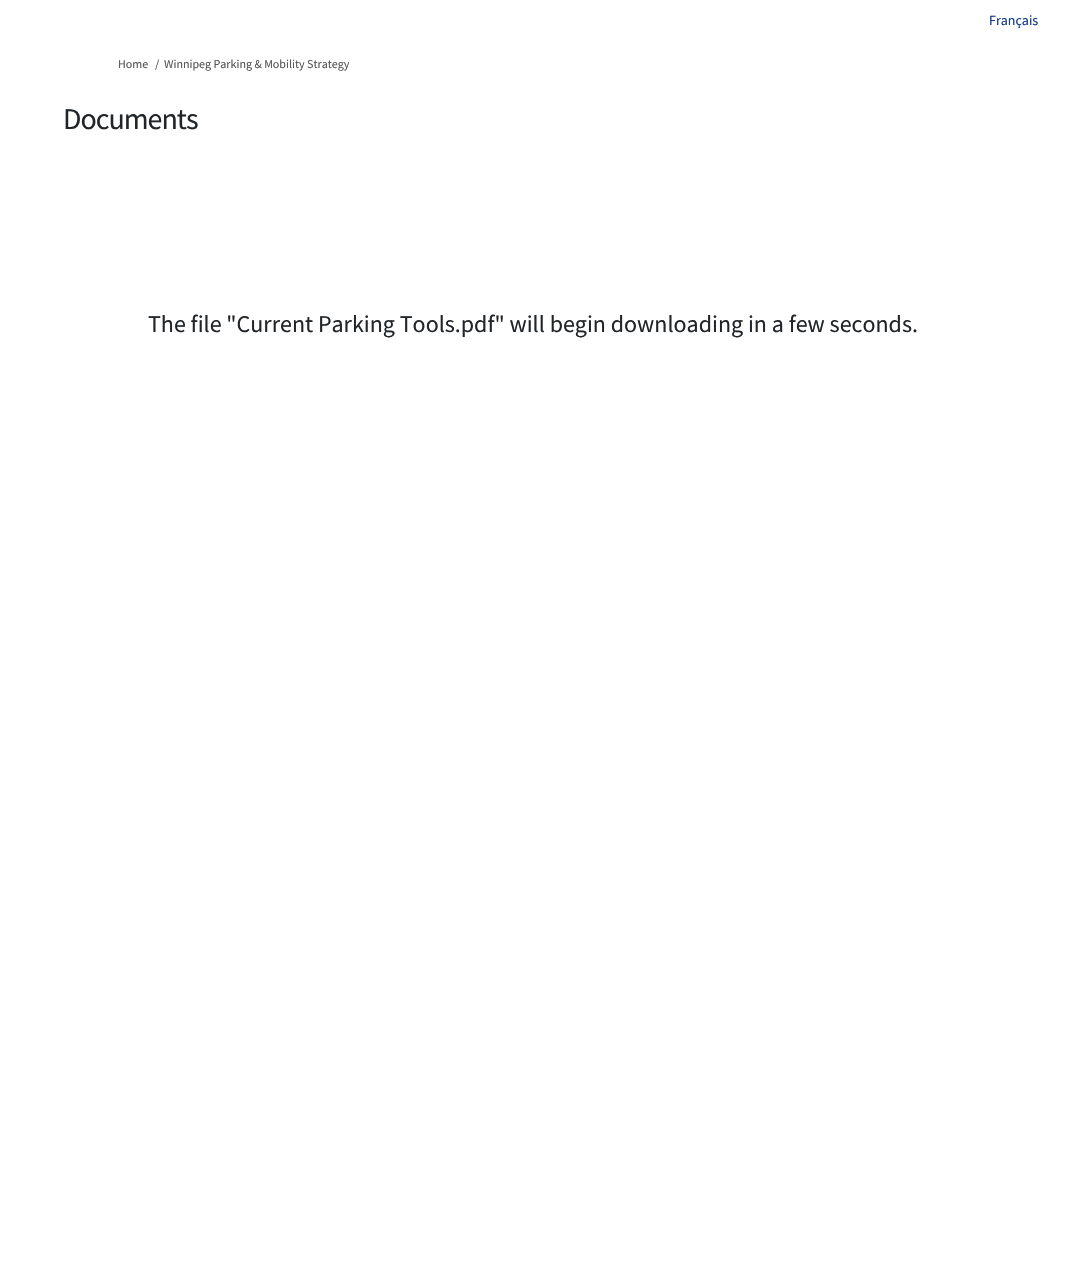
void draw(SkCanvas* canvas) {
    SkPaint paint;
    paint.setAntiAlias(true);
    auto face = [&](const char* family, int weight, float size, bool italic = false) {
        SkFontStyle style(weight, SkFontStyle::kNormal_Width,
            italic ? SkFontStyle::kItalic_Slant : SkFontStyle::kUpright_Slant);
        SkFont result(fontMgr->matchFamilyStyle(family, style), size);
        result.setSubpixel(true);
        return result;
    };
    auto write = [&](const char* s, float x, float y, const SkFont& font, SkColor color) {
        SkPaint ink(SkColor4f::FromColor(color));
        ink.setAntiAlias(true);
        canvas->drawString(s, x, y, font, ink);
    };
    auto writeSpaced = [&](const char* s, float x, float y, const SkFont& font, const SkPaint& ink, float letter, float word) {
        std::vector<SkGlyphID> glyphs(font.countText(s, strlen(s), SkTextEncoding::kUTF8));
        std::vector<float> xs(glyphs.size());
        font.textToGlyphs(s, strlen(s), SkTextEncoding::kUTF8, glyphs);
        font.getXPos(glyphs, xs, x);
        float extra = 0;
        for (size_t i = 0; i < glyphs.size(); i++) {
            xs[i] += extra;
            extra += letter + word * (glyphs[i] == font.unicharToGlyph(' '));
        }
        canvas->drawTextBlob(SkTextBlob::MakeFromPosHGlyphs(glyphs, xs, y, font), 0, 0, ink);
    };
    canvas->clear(SK_ColorWHITE);
    auto kFont1 = face("Source Sans Pro", 400, 14);
    write("Français", 989, 25, kFont1, SkColorSetRGB(18, 57, 133));
    auto kFont2 = face("Source Sans Pro", 400, 12);
    write("Home", 118, 68, kFont2, SkColorSetRGB(85, 85, 85));
    write("/", 155, 68, kFont2, SkColorSetRGB(85, 85, 85));
    write("Winnipeg Parking & Mobility Strategy", 164, 68, kFont2, SkColorSetRGB(85, 85, 85));
    auto kFont3 = face("Source Sans Pro", 400, 30);
    paint.setColor(SkColorSetRGB(33, 37, 41));
    writeSpaced("Documents", 63, 129, kFont3, paint, -1, 0);
    auto kFont4 = face("Source Sans Pro", 400, 24);
    write("The file \"Current Parking Tools.pdf\" will begin downloading in a few seconds.", 148, 332, kFont4, SkColorSetRGB(33, 37, 41));
}
